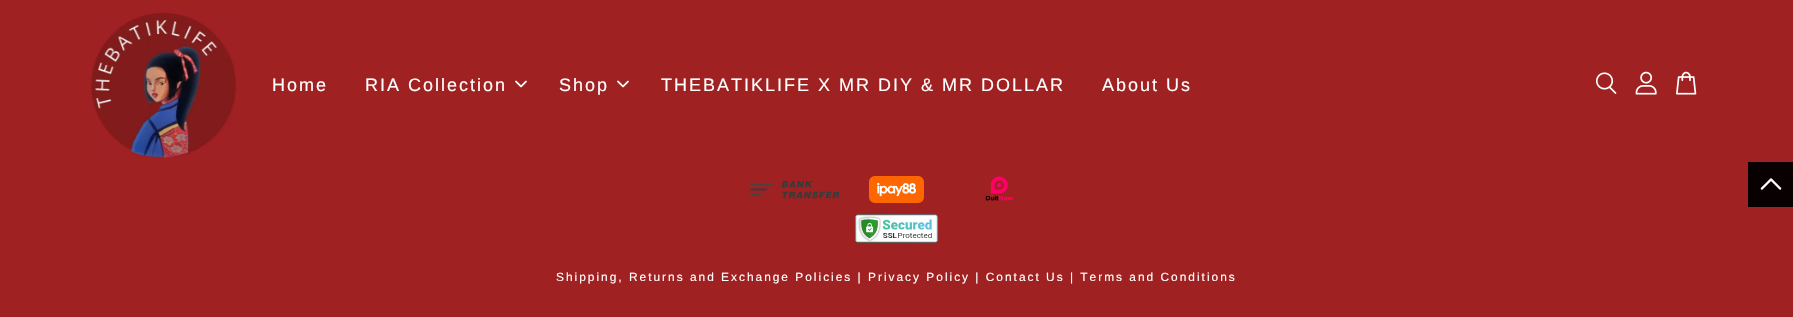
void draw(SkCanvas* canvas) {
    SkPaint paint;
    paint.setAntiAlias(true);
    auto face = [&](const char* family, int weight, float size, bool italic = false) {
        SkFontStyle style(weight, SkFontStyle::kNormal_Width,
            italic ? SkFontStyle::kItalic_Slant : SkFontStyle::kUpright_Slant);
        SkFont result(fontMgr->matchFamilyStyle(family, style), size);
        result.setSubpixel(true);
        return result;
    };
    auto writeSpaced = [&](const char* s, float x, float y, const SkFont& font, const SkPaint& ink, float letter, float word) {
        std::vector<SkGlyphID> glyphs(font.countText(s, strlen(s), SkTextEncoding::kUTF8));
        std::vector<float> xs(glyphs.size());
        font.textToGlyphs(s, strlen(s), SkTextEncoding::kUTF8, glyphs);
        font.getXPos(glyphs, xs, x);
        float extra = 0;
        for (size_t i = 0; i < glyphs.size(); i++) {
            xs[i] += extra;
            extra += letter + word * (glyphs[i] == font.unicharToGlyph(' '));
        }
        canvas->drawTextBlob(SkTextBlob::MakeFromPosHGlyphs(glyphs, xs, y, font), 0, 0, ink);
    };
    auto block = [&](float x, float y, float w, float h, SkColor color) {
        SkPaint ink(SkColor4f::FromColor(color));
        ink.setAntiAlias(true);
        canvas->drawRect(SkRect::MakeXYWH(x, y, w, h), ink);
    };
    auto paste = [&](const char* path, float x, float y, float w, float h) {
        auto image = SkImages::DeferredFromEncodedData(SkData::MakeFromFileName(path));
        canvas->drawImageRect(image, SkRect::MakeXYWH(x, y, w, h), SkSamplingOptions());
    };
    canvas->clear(SkColorSetRGB(159, 33, 33));
    paste("pic1.png", 91, 10, 146, 148);
    auto kFont1 = face("Liberation Sans", 400, 18);
    paint.setColor(SK_ColorWHITE);
    writeSpaced("Home", 272, 91, kFont1, paint, 2, 0);
    writeSpaced("RIA Collection", 365, 91, kFont1, paint, 2, 0);
    paste("pic2.png", 515, 80, 12, 8);
    writeSpaced("Shop", 559, 91, kFont1, paint, 2, 0);
    paste("pic2.png", 617, 80, 12, 8);
    writeSpaced("THEBATIKLIFE X MR DIY & MR DOLLAR", 661, 91, kFont1, paint, 2, 0);
    writeSpaced("About Us", 1102, 91, kFont1, paint, 2, 0);
    paste("pic3.png", 1596, 72, 21, 22);
    paste("pic4.png", 1635, 71, 22, 24);
    paste("pic5.png", 1676, 71, 21, 24);
    block(1748, 162, 45, 45, SkColorSetRGB(8, 0, 1));
    paste("pic6.png", 1760, 178, 22, 12);
    paste("pic7.png", 750, 180, 90, 19);
    paste("pic8.png", 869, 176, 55, 27);
    paste("pic9.png", 985, 176, 29, 25);
    paste("pic10.png", 855, 214, 83, 29);
    auto kFont2 = face("Liberation Sans", 400, 11.9f);
    writeSpaced("Shipping, Returns and Exchange Policies | Privacy Policy | Contact Us | Terms and Conditions", 556, 281, kFont2, paint, 2, 0);
}
